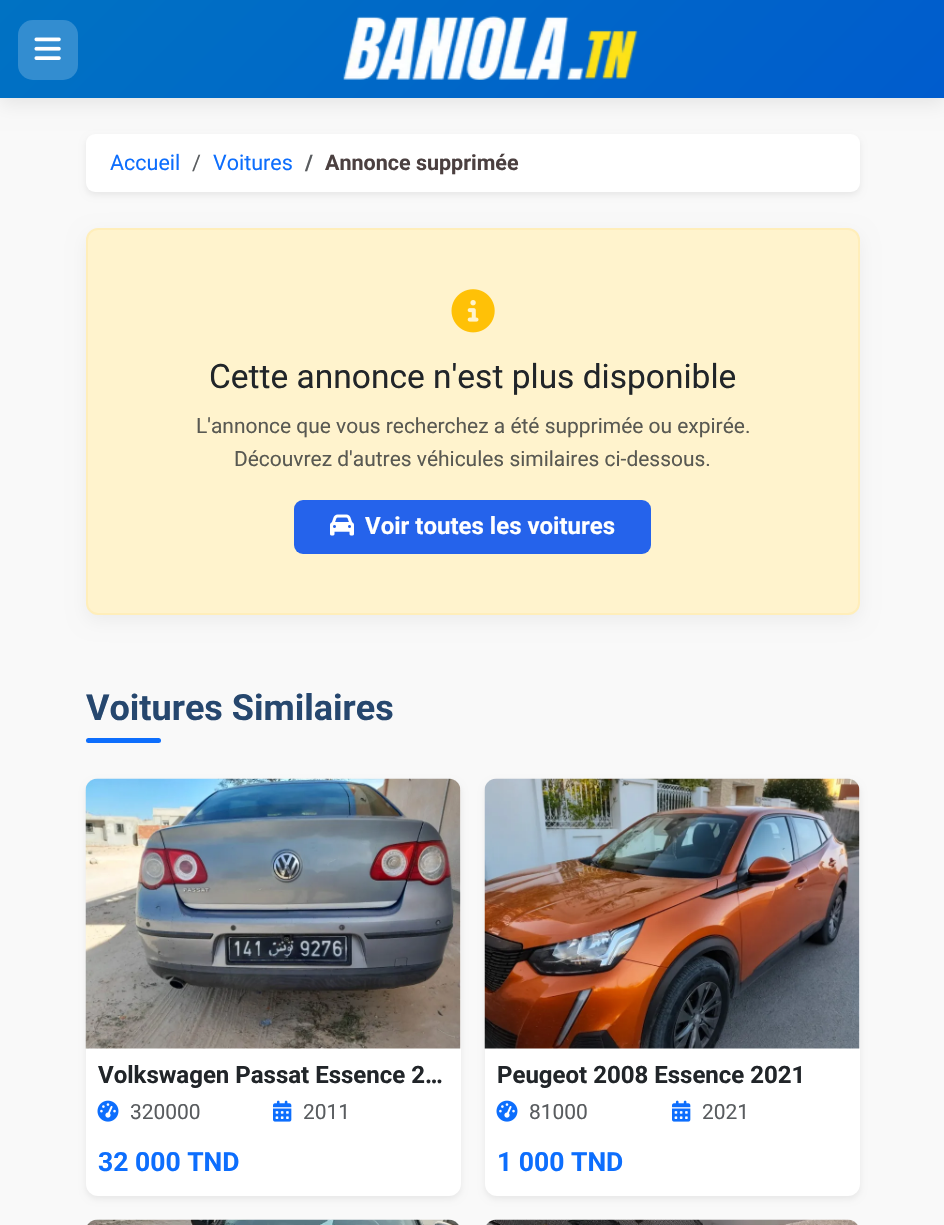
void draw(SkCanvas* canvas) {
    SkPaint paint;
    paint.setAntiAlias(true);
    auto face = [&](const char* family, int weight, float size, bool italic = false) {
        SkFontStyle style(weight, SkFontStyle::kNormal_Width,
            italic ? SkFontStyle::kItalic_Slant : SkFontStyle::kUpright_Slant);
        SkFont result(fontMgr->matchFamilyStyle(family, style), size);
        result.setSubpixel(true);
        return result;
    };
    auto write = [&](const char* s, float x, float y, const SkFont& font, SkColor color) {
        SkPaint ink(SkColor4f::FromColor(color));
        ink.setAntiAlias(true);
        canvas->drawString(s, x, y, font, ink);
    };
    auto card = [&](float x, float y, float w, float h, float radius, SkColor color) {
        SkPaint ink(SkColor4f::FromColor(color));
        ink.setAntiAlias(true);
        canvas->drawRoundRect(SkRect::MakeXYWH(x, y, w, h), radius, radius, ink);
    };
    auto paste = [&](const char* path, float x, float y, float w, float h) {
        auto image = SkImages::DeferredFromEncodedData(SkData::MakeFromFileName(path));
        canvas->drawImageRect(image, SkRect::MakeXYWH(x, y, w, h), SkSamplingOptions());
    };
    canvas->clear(SkColorSetRGB(249, 249, 249));
    paint.setColor(SkColorSetARGB(20, 0, 0, 0));
    paint.setMaskFilter(SkMaskFilter::MakeBlur(kNormal_SkBlurStyle, 9));
    canvas->drawRect(SkRect::MakeXYWH(0, 6, 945, 98), paint);
    paint.setMaskFilter(nullptr);
    {
        const SkColor colors[] = {SkColorSetRGB(0, 114, 195), SkColorSetRGB(0, 92, 205)};
        const float stops[] = {0, 1};
        const SkPoint ends[] = {{212, -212}, {733, 309}};
        paint.setShader(SkGradientShader::MakeLinear(ends, colors, stops, 2, SkTileMode::kClamp));
        paint.setAlpha(255);
    }
    canvas->drawRect(SkRect::MakeXYWH(0, 0, 944, 98), paint);
    card(18, 20, 60, 60, 15, SkColorSetRGB(51, 141, 208));
    paste("pic1.png", 34, 37, 27, 23);
    paste("pic2.png", 343, 16, 295, 64);
    paint.setShader(nullptr);
    paint.setColor(SkColorSetARGB(18, 0, 0, 0));
    paint.setMaskFilter(SkMaskFilter::MakeBlur(kNormal_SkBlurStyle, 3));
    canvas->drawRoundRect(SkRect::MakeXYWH(86, 137, 774, 58), 9, 9, paint);
    paint.setMaskFilter(nullptr);
    card(86, 134, 774, 58, 9, SK_ColorWHITE);
    auto kFont1 = face("Roboto", 400, 21.5f);
    write("Accueil", 110, 170, kFont1, SkColorSetRGB(13, 110, 253));
    write("/", 192, 170, kFont1, SkColorSetRGB(89, 92, 95));
    write("Voitures", 213, 170, kFont1, SkColorSetRGB(13, 110, 253));
    auto kFont2 = face("Roboto", 700, 21.5f);
    write("/", 305, 170, kFont2, SkColorSetRGB(89, 92, 95));
    write("Annonce supprimée", 325, 170, kFont2, SkColorSetRGB(75, 64, 64));
    paint.setColor(SkColorSetARGB(13, 0, 0, 0));
    paint.setMaskFilter(SkMaskFilter::MakeBlur(kNormal_SkBlurStyle, 9));
    canvas->drawRoundRect(SkRect::MakeXYWH(86, 234, 774, 387), 12, 12, paint);
    paint.setMaskFilter(nullptr);
    paint.setColor(SkColorSetRGB(255, 243, 205));
    canvas->drawRoundRect(SkRect::MakeXYWH(87, 229, 772, 385), 11, 11, paint);
    paint.setStyle(SkPaint::kStroke_Style);
    paint.setStrokeWidth(2);
    paint.setColor(SkColorSetRGB(255, 238, 186));
    canvas->drawRoundRect(SkRect::MakeXYWH(87, 229, 772, 385), 11, 11, paint);
    paste("pic3.png", 451, 289, 44, 44);
    auto kFont3 = face("Roboto", 400, 33.5f);
    write("Cette annonce n'est plus disponible", 209, 388, kFont3, SkColorSetRGB(33, 37, 41));
    auto kFont4 = face("Roboto", 400, 20.95f);
    write("L'annonce que vous recherchez a été supprimée ou expirée.", 196, 433, kFont4, SkColorSetRGB(89, 89, 82));
    write("Découvrez d'autres véhicules similaires ci-dessous.", 234, 466, kFont4, SkColorSetRGB(89, 89, 82));
    card(294, 500, 357, 54, 9, SkColorSetRGB(37, 99, 235));
    paste("pic4.png", 330, 514, 24, 22);
    auto kFont5 = face("Roboto", 700, 24);
    write("Voir toutes les voitures", 365, 534, kFont5, SK_ColorWHITE);
    auto kFont6 = face("Roboto", 700, 36);
    write("Voitures Similaires", 86, 720, kFont6, SkColorSetRGB(38, 71, 110));
    card(86, 738, 75, 5, 2.5f, SkColorSetRGB(13, 110, 253));
    paint.setStyle(SkPaint::kFill_Style);
    paint.setColor(SkColorSetARGB(18, 0, 0, 0));
    paint.setMaskFilter(SkMaskFilter::MakeBlur(kNormal_SkBlurStyle, 3));
    canvas->drawRoundRect(SkRect::MakeXYWH(86, 782, 375, 417), 12, 12, paint);
    paint.setMaskFilter(nullptr);
    card(86, 779, 375, 417, 12, SK_ColorWHITE);
    paste("pic5.png", 85, 778, 376, 271);
    write("Volkswagen Passat Essence 2…", 98, 1083, kFont5, SkColorSetRGB(33, 37, 41));
    paste("pic6.png", 97, 1100, 22, 22);
    write("320000", 130, 1119, kFont4, SkColorSetRGB(89, 92, 95));
    paste("pic7.png", 273, 1100, 19, 22);
    write("2011", 303, 1119, kFont4, SkColorSetRGB(89, 92, 95));
    auto kFont7 = face("Roboto", 700, 26.5f);
    write("32 000 TND", 98, 1171, kFont7, SkColorSetRGB(13, 110, 253));
    paint.setMaskFilter(SkMaskFilter::MakeBlur(kNormal_SkBlurStyle, 3));
    canvas->drawRoundRect(SkRect::MakeXYWH(485, 782, 375, 417), 12, 12, paint);
    paint.setMaskFilter(nullptr);
    card(485, 779, 375, 417, 12, SK_ColorWHITE);
    paste("pic8.png", 484, 778, 376, 271);
    write("Peugeot 2008 Essence 2021", 497, 1083, kFont5, SkColorSetRGB(33, 37, 41));
    paste("pic6.png", 496, 1100, 22, 22);
    write("81000", 529, 1119, kFont4, SkColorSetRGB(89, 92, 95));
    paste("pic7.png", 672, 1100, 19, 22);
    write("2021", 702, 1119, kFont4, SkColorSetRGB(89, 92, 95));
    write("1 000 TND", 497, 1171, kFont7, SkColorSetRGB(13, 110, 253));
    paste("pic9.png", 87, 1219, 372, 6);
    paste("pic10.png", 486, 1219, 372, 6);
}
